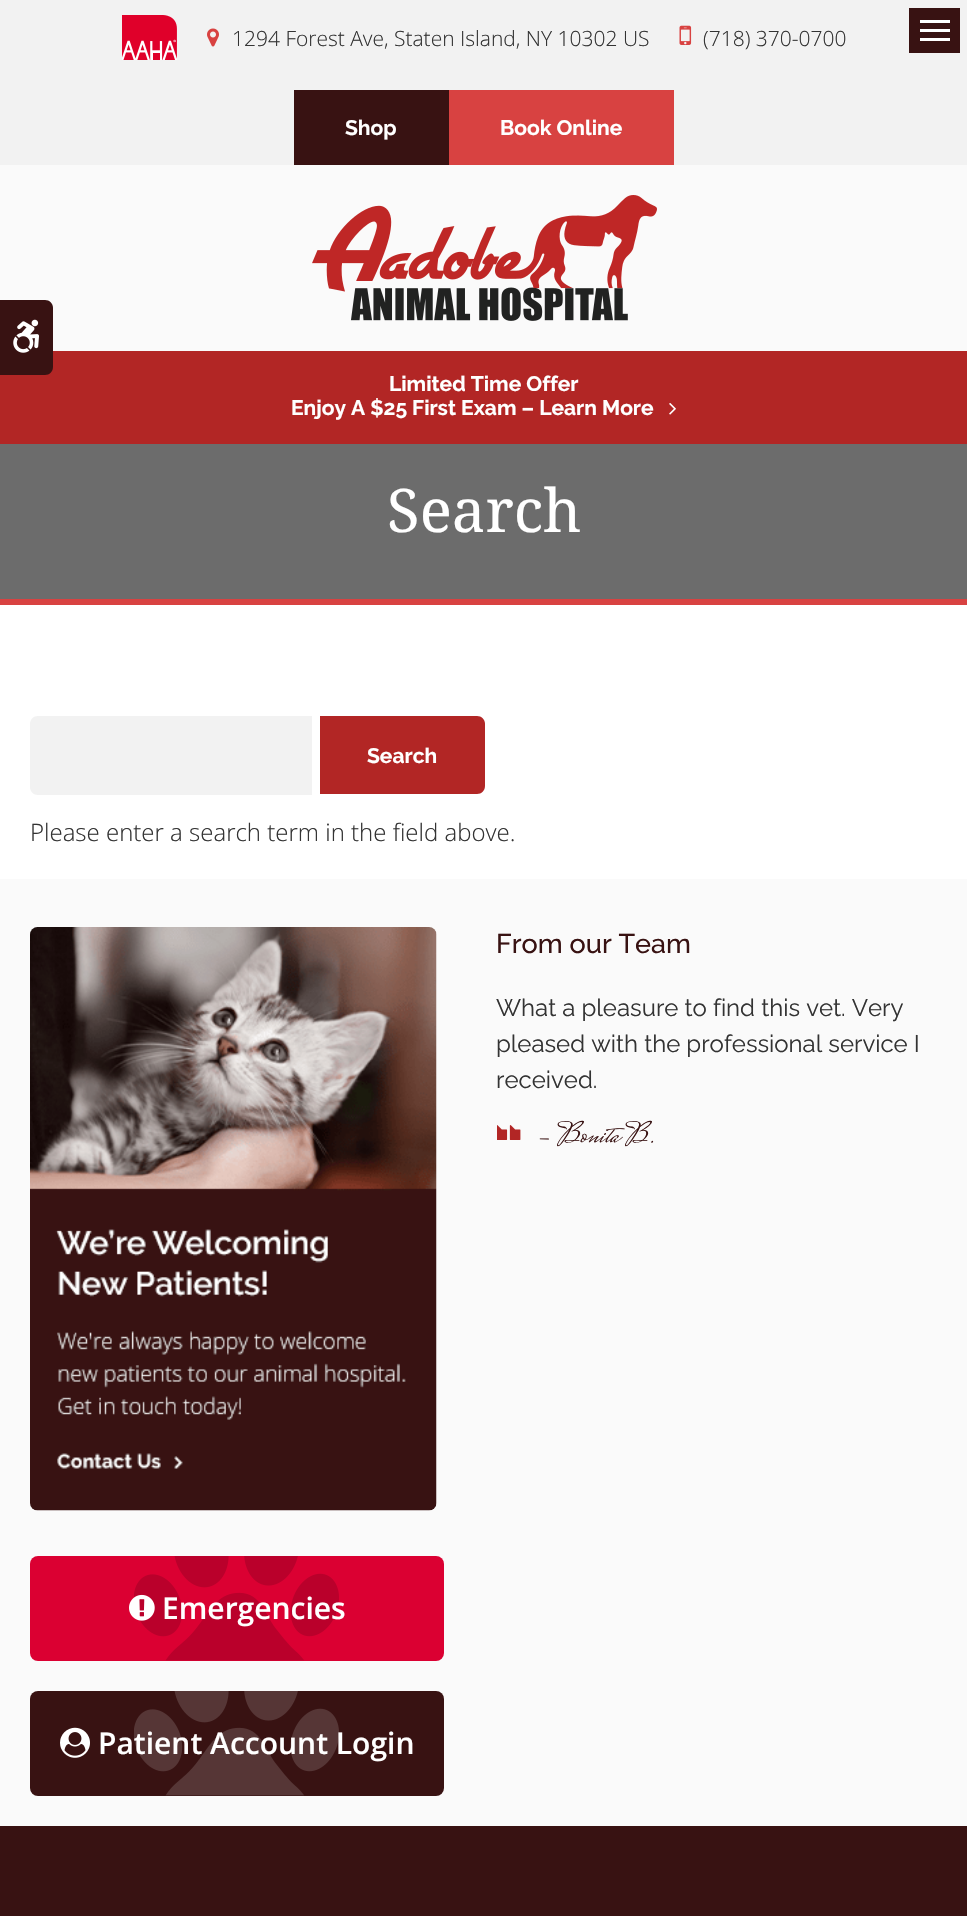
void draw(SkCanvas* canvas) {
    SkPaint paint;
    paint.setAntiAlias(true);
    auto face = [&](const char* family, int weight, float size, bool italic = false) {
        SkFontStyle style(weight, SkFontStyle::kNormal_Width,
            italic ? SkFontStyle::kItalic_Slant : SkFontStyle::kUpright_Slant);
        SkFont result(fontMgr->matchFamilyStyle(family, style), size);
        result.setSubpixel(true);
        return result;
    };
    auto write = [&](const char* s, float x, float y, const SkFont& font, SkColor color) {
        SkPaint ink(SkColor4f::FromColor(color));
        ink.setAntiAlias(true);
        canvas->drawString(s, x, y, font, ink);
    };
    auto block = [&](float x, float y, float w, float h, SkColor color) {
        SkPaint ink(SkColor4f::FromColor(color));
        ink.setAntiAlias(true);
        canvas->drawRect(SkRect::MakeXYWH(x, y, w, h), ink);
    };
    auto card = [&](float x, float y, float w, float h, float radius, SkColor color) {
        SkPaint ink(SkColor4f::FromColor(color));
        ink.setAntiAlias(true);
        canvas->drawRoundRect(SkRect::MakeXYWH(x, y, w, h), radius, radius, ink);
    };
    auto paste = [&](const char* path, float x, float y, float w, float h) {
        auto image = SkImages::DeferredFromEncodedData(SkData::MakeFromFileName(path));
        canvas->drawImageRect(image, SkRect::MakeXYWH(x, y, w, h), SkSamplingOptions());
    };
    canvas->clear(SkColorSetRGB(178, 38, 37));
    block(0, 165, 967, 186, SkColorSetRGB(250, 250, 250));
    block(0, 0, 967, 165, SkColorSetRGB(242, 242, 242));
    paste("pic1.png", 122, 15, 55, 45);
    paste("pic2.png", 207, 28, 12, 19);
    auto kFont1 = face("Open Sans", 300, 21);
    write("1294 Forest Ave, Staten Island, NY 10302 US", 232, 46, kFont1, SkColorSetRGB(51, 51, 51));
    paste("pic3.png", 679, 25, 13, 20);
    write("(718) 370-0700", 703, 46, kFont1, SkColorSetRGB(51, 51, 51));
    block(294, 90, 155, 75, SkColorSetRGB(56, 18, 18));
    auto kFont2 = face("Raleway", 700, 21);
    write("Shop", 345, 135, kFont2, SK_ColorWHITE);
    block(449, 90, 225, 75, SkColorSetRGB(216, 66, 65));
    write("Book Online", 500, 135, kFont2, SK_ColorWHITE);
    paste("pic4.png", 312, 195, 345, 126);
    paint.setColor(SkColorSetRGB(56, 18, 18));
    canvas->drawPath(SkPathBuilder().moveTo(0, 300).lineTo(45, 300).cubicTo(49.5f, 300, 53, 303.5f, 53, 308).lineTo(53, 367).cubicTo(53, 371.5f, 49.5f, 375, 45, 375).lineTo(0, 375).close().detach(), paint);
    paste("pic5.png", 13, 319, 26, 34);
    write("Limited Time Offer", 389, 391, kFont2, SK_ColorWHITE);
    write("Enjoy A $25 First Exam – Learn More", 291, 415, kFont2, SK_ColorWHITE);
    paste("pic6.png", 669, 403, 7, 12);
    block(0, 444, 967, 155, SkColorSetRGB(108, 108, 108));
    block(0, 599, 967, 6, SkColorSetRGB(216, 66, 65));
    auto kFont3 = face("Noto Serif", 400, 60);
    write("Search", 387, 532, kFont3, SK_ColorWHITE);
    block(0, 879, 967, 947, SkColorSetRGB(250, 250, 250));
    block(0, 605, 967, 274, SK_ColorWHITE);
    paint.setColor(SkColorSetRGB(242, 242, 242));
    canvas->drawPath(SkPathBuilder().moveTo(38, 716).lineTo(312, 716).lineTo(312, 795).lineTo(38, 795).cubicTo(33.5f, 795, 30, 791.5f, 30, 787).lineTo(30, 724).cubicTo(30, 719.5f, 33.5f, 716, 38, 716).close().detach(), paint);
    paint.setColor(SkColorSetRGB(178, 38, 37));
    canvas->drawPath(SkPathBuilder().moveTo(320, 716).lineTo(477, 716).cubicTo(481.5f, 716, 485, 719.5f, 485, 724).lineTo(485, 786).cubicTo(485, 790.5f, 481.5f, 794, 477, 794).lineTo(320, 794).close().detach(), paint);
    write("Search", 367, 763, kFont2, SK_ColorWHITE);
    auto kFont4 = face("Open Sans", 300, 24);
    write("Please enter a search term in the field above.", 30, 841, kFont4, SkColorSetRGB(51, 51, 51));
    paste("pic7.png", 30, 927, 407, 584);
    auto kFont5 = face("Raleway", 500, 27);
    write("From our Team", 496, 953, kFont5, SkColorSetRGB(56, 18, 18));
    auto kFont6 = face("Raleway", 400, 24);
    write("What a pleasure to find this vet. Very", 496, 1016, kFont6, SkColorSetRGB(51, 51, 51));
    write("pleased with the professional service I", 496, 1052, kFont6, SkColorSetRGB(51, 51, 51));
    write("received.", 496, 1088, kFont6, SkColorSetRGB(51, 51, 51));
    paste("pic8.png", 497, 1125, 24, 15);
    auto kFont7 = face("Mrs Saint Delafield", 400, 30);
    write("- Bonita B.", 535, 1142, kFont7, SkColorSetRGB(56, 18, 18));
    card(30, 1556, 414, 105, 8, SkColorSetRGB(219, 0, 50));
    paste("pic9.png", 134, 1556, 205, 105);
    paste("pic10.png", 129, 1594, 26, 27);
    auto kFont8 = face("Open Sans", 600, 30);
    write("Emergencies", 162, 1619, kFont8, SK_ColorWHITE);
    card(30, 1691, 414, 105, 8, SkColorSetRGB(56, 18, 18));
    paste("pic11.png", 60, 1727, 30, 31);
    paste("pic12.png", 134, 1691, 205, 105);
    write("Patient Account Login", 98, 1754, kFont8, SK_ColorWHITE);
    block(0, 1826, 967, 90, SkColorSetRGB(56, 18, 18));
    block(909, 8, 51, 45, SkColorSetRGB(56, 18, 18));
    block(920, 20, 30, 3, SK_ColorWHITE);
    block(920, 29, 30, 3, SK_ColorWHITE);
    block(920, 38, 30, 3, SK_ColorWHITE);
}
